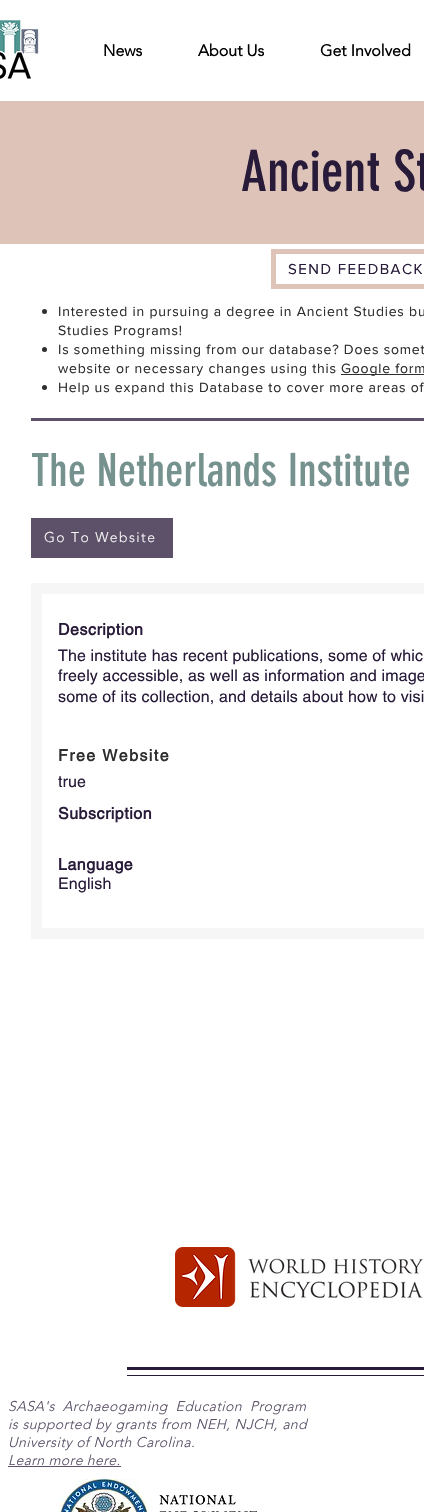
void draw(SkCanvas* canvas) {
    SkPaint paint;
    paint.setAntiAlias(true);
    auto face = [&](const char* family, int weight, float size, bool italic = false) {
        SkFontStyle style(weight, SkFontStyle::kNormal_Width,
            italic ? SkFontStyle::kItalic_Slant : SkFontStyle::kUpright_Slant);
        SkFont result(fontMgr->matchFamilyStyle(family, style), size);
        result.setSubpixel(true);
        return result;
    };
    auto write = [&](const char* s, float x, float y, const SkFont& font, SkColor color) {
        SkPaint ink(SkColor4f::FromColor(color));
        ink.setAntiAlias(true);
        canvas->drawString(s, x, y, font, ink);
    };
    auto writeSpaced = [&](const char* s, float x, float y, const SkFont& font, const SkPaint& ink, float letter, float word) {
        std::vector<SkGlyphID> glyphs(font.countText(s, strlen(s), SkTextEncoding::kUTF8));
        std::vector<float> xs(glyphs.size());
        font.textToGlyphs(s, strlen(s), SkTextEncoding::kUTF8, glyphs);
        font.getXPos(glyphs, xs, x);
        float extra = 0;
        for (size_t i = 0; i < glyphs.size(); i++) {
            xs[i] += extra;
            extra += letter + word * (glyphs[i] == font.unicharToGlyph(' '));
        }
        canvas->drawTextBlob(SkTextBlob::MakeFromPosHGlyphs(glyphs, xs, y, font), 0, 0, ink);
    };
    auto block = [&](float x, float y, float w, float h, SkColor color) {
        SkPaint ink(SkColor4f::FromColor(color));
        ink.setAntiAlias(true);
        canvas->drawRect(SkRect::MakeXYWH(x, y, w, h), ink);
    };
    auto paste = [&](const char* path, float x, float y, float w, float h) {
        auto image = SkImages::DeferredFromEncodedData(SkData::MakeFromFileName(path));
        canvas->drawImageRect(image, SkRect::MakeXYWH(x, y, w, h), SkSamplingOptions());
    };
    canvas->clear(SK_ColorWHITE);
    paste("pic1.png", 0, 20, 39, 59);
    auto kFont1 = face("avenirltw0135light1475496", 700, 16);
    write("News", 103, 56, kFont1, SK_ColorBLACK);
    write("About Us", 198, 56, kFont1, SK_ColorBLACK);
    write("Get Involved", 320, 56, kFont1, SK_ColorBLACK);
    block(0, 101, 424, 143, SkColorSetRGB(222, 195, 184));
    auto kFont2 = face("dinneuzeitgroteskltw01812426", 400, 56);
    write("Ancient St", 241, 191, kFont2, SkColorSetRGB(40, 26, 57));
    paint.setStyle(SkPaint::kStroke_Style);
    paint.setStrokeWidth(5);
    paint.setColor(SkColorSetRGB(222, 195, 184));
    canvas->drawRect(SkRect::MakeXYWH(273.5f, 251.5f, 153, 35), paint);
    auto kFont3 = face("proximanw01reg", 400, 15);
    paint.setStyle(SkPaint::kFill_Style);
    paint.setColor(SkColorSetRGB(40, 26, 57));
    writeSpaced("SEND FEEDBACK", 288, 274, kFont3, paint, 1.5f, 0);
    paint.setColor(SkColorSetRGB(46, 46, 46));
    canvas->drawCircle(44.5f, 311.5f, 2.5f, paint);
    auto kFont4 = face("proximanw01reg", 400, 14);
    writeSpaced("Interested in pursuing a degree in Ancient Studies bu", 58, 316, kFont4, paint, 0.8f, 0);
    writeSpaced("Studies Programs!", 58, 335, kFont4, paint, 0.8f, 0);
    canvas->drawCircle(44.5f, 349.5f, 2.5f, paint);
    writeSpaced("Is something missing from our database? Does somet", 58, 354, kFont4, paint, 0.8f, 0);
    writeSpaced("website or necessary changes using this", 58, 373, kFont4, paint, 0.8f, 0);
    block(341, 374, 83, 1, SkColorSetRGB(46, 46, 46));
    writeSpaced("Google form", 341, 373, kFont4, paint, 0.8f, 0);
    canvas->drawCircle(44.5f, 387.5f, 2.5f, paint);
    writeSpaced("Help us expand this Database to cover more areas of", 58, 392, kFont4, paint, 0.8f, 0);
    block(31, 418, 393, 3, SkColorSetRGB(92, 81, 104));
    auto kFont5 = face("dinneuzeitgroteskltw01812426", 400, 45);
    write("The Netherlands Institute", 31, 486, kFont5, SkColorSetRGB(117, 146, 142));
    block(31, 518, 142, 40, SkColorSetRGB(92, 81, 104));
    auto kFont6 = face("avenirltw0135light1475496", 300, 14);
    paint.setColor(SkColorSetRGB(246, 246, 246));
    writeSpaced("Go To Website", 44, 542, kFont6, paint, 1.4f, 0);
    paint.setStyle(SkPaint::kStroke_Style);
    paint.setStrokeWidth(11);
    canvas->drawRect(SkRect::MakeXYWH(36.5f, 588.5f, 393, 345), paint);
    auto kFont7 = face("helvetica", 700, 16);
    paint.setStyle(SkPaint::kFill_Style);
    paint.setColor(SkColorSetRGB(40, 26, 57));
    writeSpaced("Description", 58, 635, kFont7, paint, 0.5f, 0);
    auto kFont8 = face("helvetica", 400, 16);
    writeSpaced("The institute has recent publications, some of whic", 58, 661, kFont8, paint, 0.15f, 0);
    writeSpaced("freely accessible, as well as information and image", 58, 681, kFont8, paint, 0.15f, 0);
    writeSpaced("some of its collection, and details about how to visi", 58, 702, kFont8, paint, 0.15f, 0);
    paint.setColor(SkColorSetRGB(46, 46, 46));
    writeSpaced("Free Website", 58, 761, kFont7, paint, 1.4f, 0);
    paint.setColor(SkColorSetRGB(40, 26, 57));
    writeSpaced("true", 58, 787, kFont8, paint, 0.15f, 0);
    writeSpaced("Subscription", 58, 819, kFont7, paint, 0.5f, 0);
    writeSpaced("Language", 58, 870, kFont7, paint, 0.5f, 0);
    writeSpaced("English", 58, 889, kFont8, paint, 0.15f, 0);
    paste("pic2.png", 175, 1247, 248, 60);
    block(127, 1367, 297, 3, SkColorSetRGB(40, 26, 57));
    block(127, 1375, 297, 1, SkColorSetRGB(40, 26, 57));
    auto kFont9 = face("avenirltw0135light1475496", 300, 14, true);
    paint.setColor(SkColorSetRGB(92, 81, 104));
    writeSpaced("SASA's Archaeogaming Education Program", 8, 1411, kFont9, paint, 0.4f, 4);
    writeSpaced("is supported by grants from NEH, NJCH, and", 8, 1429, kFont9, paint, 0.4f, 0.25f);
    writeSpaced("University of North Carolina.", 8, 1447, kFont9, paint, 0.4f, 0);
    writeSpaced("Learn more here.", 8, 1465, kFont9, paint, 0.4f, 0);
    block(8, 1466, 113, 1, SkColorSetRGB(92, 81, 104));
    paste("pic3.png", 59, 1479, 198, 33);
}
